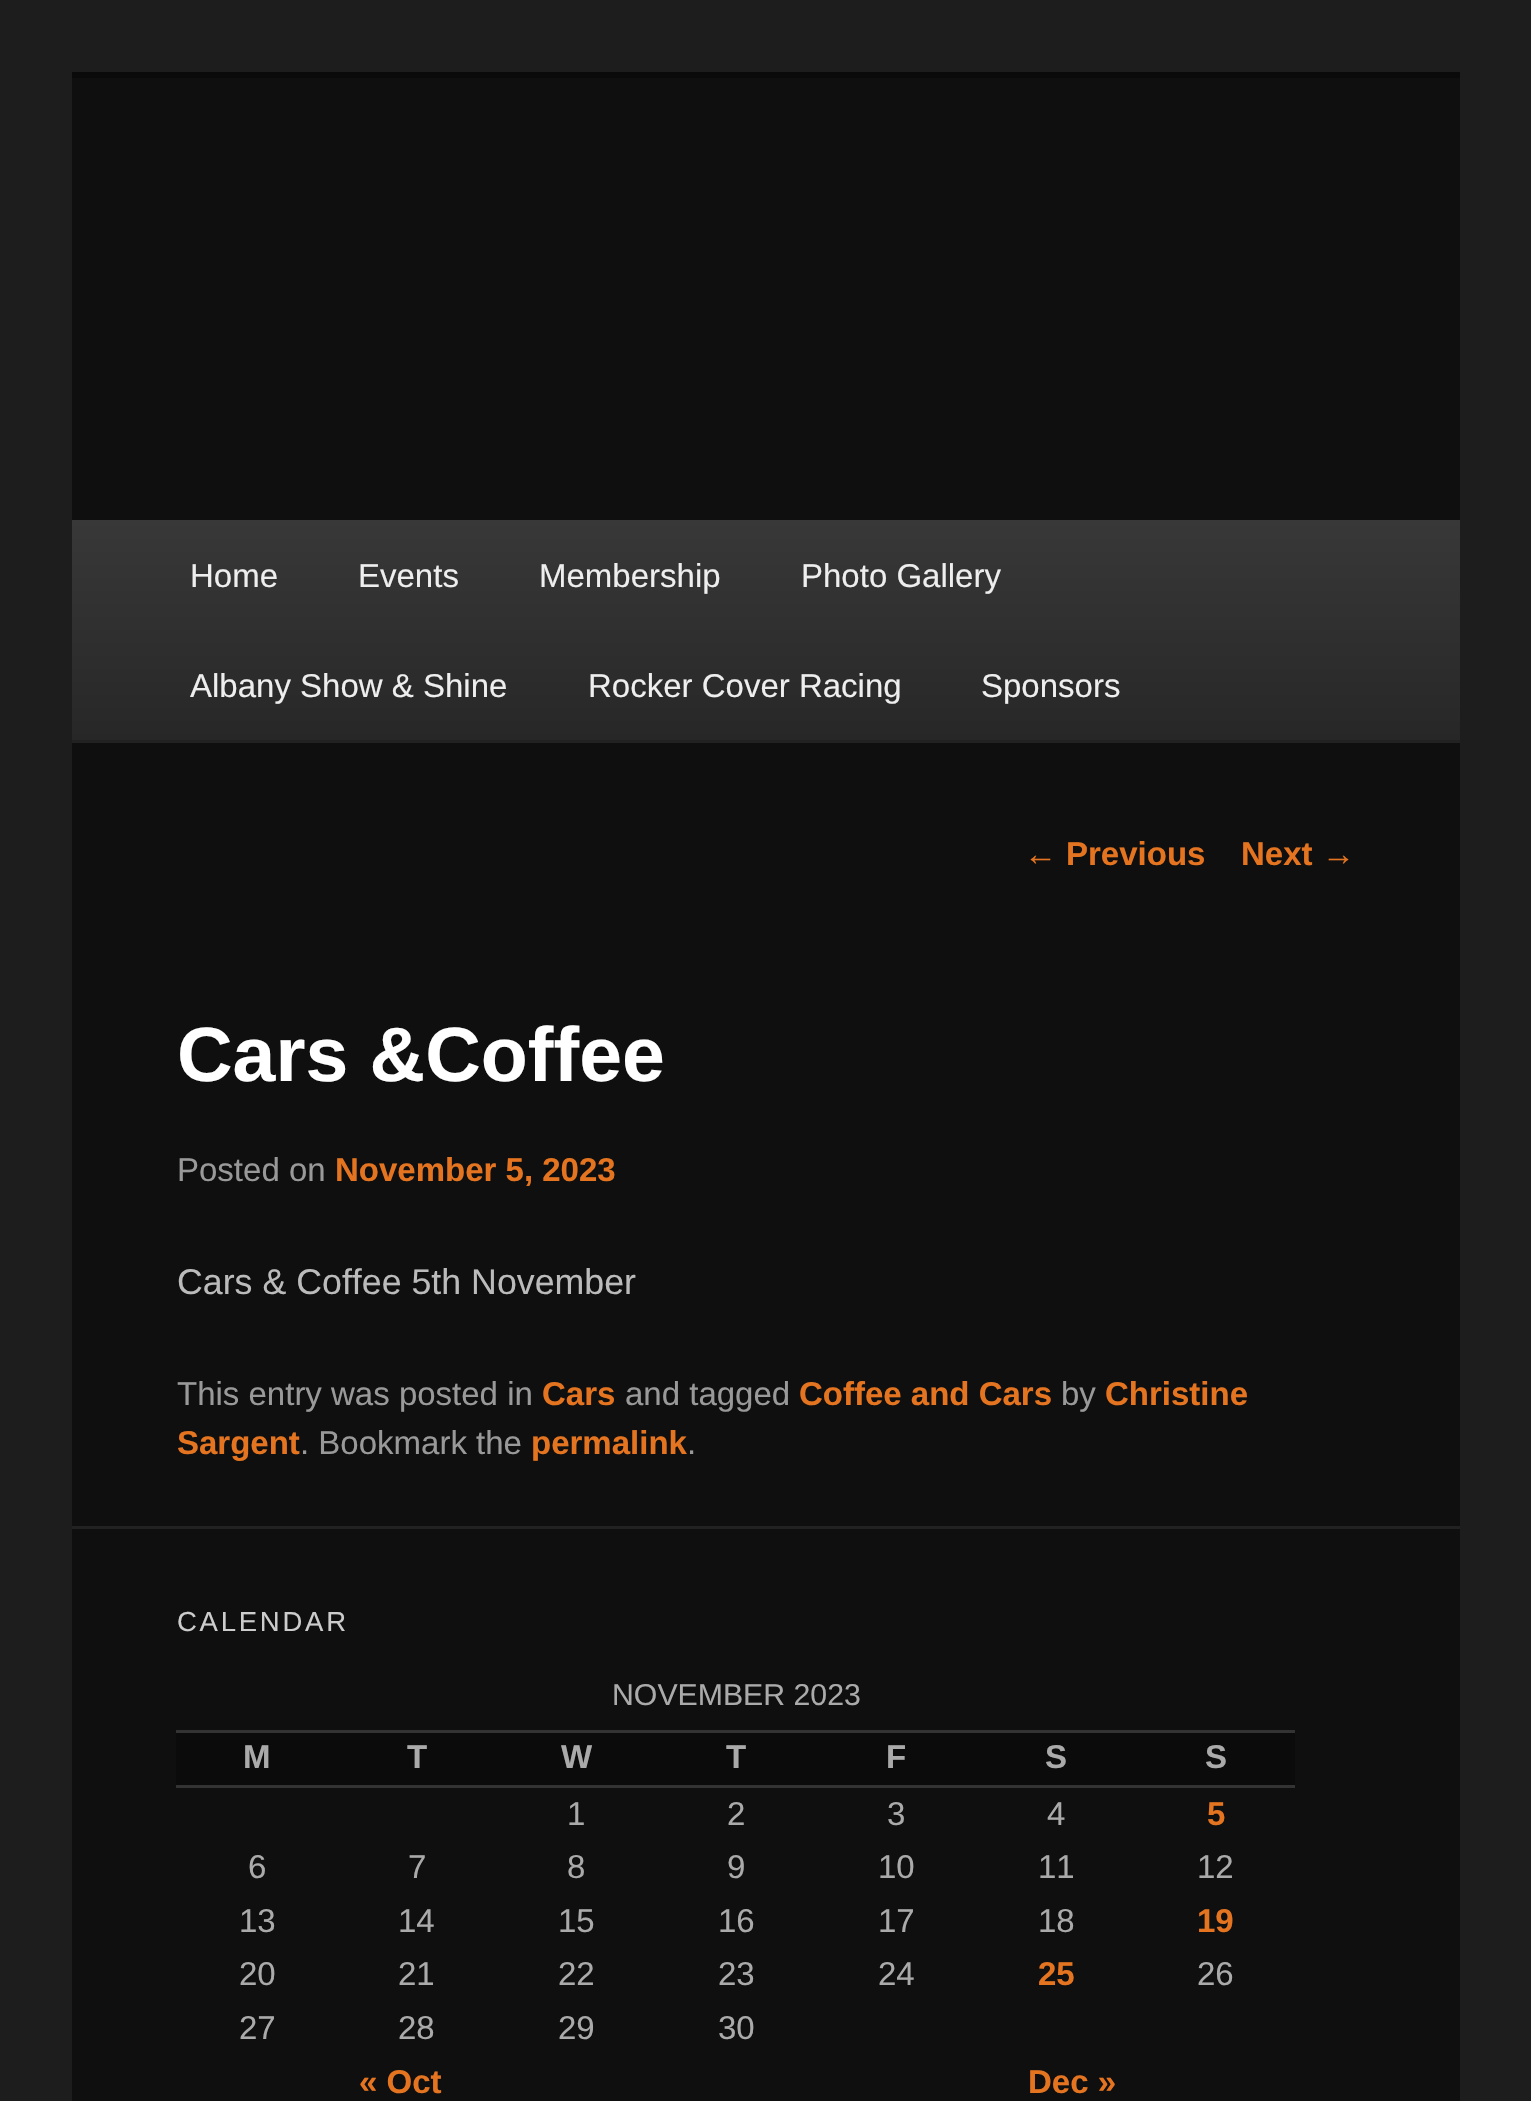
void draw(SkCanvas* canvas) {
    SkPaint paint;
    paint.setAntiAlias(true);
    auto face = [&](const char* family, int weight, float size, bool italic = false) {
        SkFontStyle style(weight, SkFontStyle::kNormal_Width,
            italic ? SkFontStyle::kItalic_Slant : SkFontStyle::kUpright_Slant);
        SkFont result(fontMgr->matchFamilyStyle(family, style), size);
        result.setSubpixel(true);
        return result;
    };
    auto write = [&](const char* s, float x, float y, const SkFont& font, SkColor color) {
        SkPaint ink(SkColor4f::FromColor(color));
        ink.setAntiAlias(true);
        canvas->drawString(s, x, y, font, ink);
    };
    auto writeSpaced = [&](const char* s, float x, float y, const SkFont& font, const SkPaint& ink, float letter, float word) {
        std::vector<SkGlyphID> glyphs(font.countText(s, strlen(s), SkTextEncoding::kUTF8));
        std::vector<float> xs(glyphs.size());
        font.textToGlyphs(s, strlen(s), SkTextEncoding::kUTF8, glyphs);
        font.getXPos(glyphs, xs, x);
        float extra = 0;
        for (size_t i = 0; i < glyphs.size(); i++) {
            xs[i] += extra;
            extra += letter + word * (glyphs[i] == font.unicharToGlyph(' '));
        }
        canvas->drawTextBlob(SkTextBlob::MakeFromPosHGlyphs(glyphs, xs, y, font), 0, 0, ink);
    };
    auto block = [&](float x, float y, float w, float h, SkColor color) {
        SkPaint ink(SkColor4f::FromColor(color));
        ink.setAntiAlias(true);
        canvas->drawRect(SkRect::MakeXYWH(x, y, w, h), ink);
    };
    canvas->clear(SkColorSetRGB(29, 29, 29));
    block(72, 78, 1388, 2023, SkColorSetRGB(15, 15, 15));
    block(72, 72, 1388, 6, SkColorSetRGB(10, 10, 10));
    {
        const SkColor colors[] = {SkColorSetRGB(56, 56, 56), SkColorSetRGB(39, 39, 39)};
        const float stops[] = {0, 1};
        const SkPoint ends[] = {{766, 520}, {766, 740}};
        paint.setShader(SkGradientShader::MakeLinear(ends, colors, stops, 2, SkTileMode::kClamp));
        paint.setAlpha(255);
    }
    canvas->drawRect(SkRect::MakeXYWH(72, 520, 1388, 220), paint);
    block(72, 740, 1388, 3, SkColorSetRGB(34, 34, 34));
    auto kFont1 = face("Liberation Sans", 400, 33);
    write("Home", 190, 587, kFont1, SkColorSetRGB(238, 238, 238));
    write("Events", 358, 587, kFont1, SkColorSetRGB(238, 238, 238));
    write("Membership", 539, 587, kFont1, SkColorSetRGB(238, 238, 238));
    write("Photo Gallery", 801, 587, kFont1, SkColorSetRGB(238, 238, 238));
    write("Albany Show & Shine", 190, 697, kFont1, SkColorSetRGB(238, 238, 238));
    write("Rocker Cover Racing", 588, 697, kFont1, SkColorSetRGB(238, 238, 238));
    write("Sponsors", 981, 697, kFont1, SkColorSetRGB(238, 238, 238));
    write("←", 1024, 865, kFont1, SkColorSetRGB(228, 116, 31));
    auto kFont2 = face("Liberation Sans", 700, 33);
    write("Previous", 1066, 865, kFont2, SkColorSetRGB(228, 116, 31));
    write("Next", 1241, 865, kFont2, SkColorSetRGB(228, 116, 31));
    write("→", 1322, 865, kFont1, SkColorSetRGB(228, 116, 31));
    auto kFont3 = face("Liberation Sans", 700, 77);
    write("Cars &Coffee", 177, 1081, kFont3, SK_ColorWHITE);
    write("Posted on", 177, 1181, kFont1, SkColorSetRGB(153, 153, 153));
    write("November 5, 2023", 335, 1181, kFont2, SkColorSetRGB(228, 116, 31));
    auto kFont4 = face("Liberation Sans", 400, 35.75f);
    write("Cars & Coffee 5th November", 177, 1294, kFont4, SkColorSetRGB(187, 187, 187));
    write("This entry was posted in", 177, 1405, kFont1, SkColorSetRGB(153, 153, 153));
    write("Cars", 542, 1405, kFont2, SkColorSetRGB(228, 116, 31));
    write("and tagged", 625, 1405, kFont1, SkColorSetRGB(153, 153, 153));
    write("Coffee and Cars", 799, 1405, kFont2, SkColorSetRGB(228, 116, 31));
    write("by", 1061, 1405, kFont1, SkColorSetRGB(153, 153, 153));
    write("Christine", 1105, 1405, kFont2, SkColorSetRGB(228, 116, 31));
    write("Sargent", 177, 1454, kFont2, SkColorSetRGB(228, 116, 31));
    write(". Bookmark the", 300, 1454, kFont1, SkColorSetRGB(153, 153, 153));
    write("permalink", 531, 1454, kFont2, SkColorSetRGB(228, 116, 31));
    write(".", 687, 1454, kFont1, SkColorSetRGB(153, 153, 153));
    block(72, 1526, 1388, 3, SkColorSetRGB(34, 34, 34));
    auto kFont5 = face("Liberation Sans", 400, 27.5f);
    paint.setShader(nullptr);
    paint.setColor(SkColorSetRGB(204, 204, 204));
    writeSpaced("CALENDAR", 177, 1631, kFont5, paint, 2.75f, 0);
    auto kFont6 = face("Liberation Sans", 400, 30.25f);
    write("NOVEMBER 2023", 612, 1705, kFont6, SkColorSetRGB(170, 170, 170));
    block(176, 1733, 1119, 52, SkColorSetRGB(11, 11, 11));
    block(176, 1730, 1119, 3, SkColorSetRGB(51, 51, 51));
    block(176, 1785, 1119, 3, SkColorSetRGB(51, 51, 51));
    write("M", 243, 1768, kFont2, SkColorSetRGB(170, 170, 170));
    write("T", 407, 1768, kFont2, SkColorSetRGB(170, 170, 170));
    write("W", 561, 1768, kFont2, SkColorSetRGB(170, 170, 170));
    write("T", 726, 1768, kFont2, SkColorSetRGB(170, 170, 170));
    write("F", 886, 1768, kFont2, SkColorSetRGB(170, 170, 170));
    write("S", 1045, 1768, kFont2, SkColorSetRGB(170, 170, 170));
    write("S", 1205, 1768, kFont2, SkColorSetRGB(170, 170, 170));
    write("1", 567, 1825, kFont1, SkColorSetRGB(170, 170, 170));
    write("2", 727, 1825, kFont1, SkColorSetRGB(170, 170, 170));
    write("3", 887, 1825, kFont1, SkColorSetRGB(170, 170, 170));
    write("4", 1047, 1825, kFont1, SkColorSetRGB(170, 170, 170));
    write("5", 1207, 1825, kFont2, SkColorSetRGB(228, 116, 31));
    write("6", 248, 1878, kFont1, SkColorSetRGB(170, 170, 170));
    write("7", 408, 1878, kFont1, SkColorSetRGB(170, 170, 170));
    write("8", 567, 1878, kFont1, SkColorSetRGB(170, 170, 170));
    write("9", 727, 1878, kFont1, SkColorSetRGB(170, 170, 170));
    write("10", 878, 1878, kFont1, SkColorSetRGB(170, 170, 170));
    write("11", 1038, 1878, kFont1, SkColorSetRGB(170, 170, 170));
    write("12", 1197, 1878, kFont1, SkColorSetRGB(170, 170, 170));
    write("13", 239, 1932, kFont1, SkColorSetRGB(170, 170, 170));
    write("14", 398, 1932, kFont1, SkColorSetRGB(170, 170, 170));
    write("15", 558, 1932, kFont1, SkColorSetRGB(170, 170, 170));
    write("16", 718, 1932, kFont1, SkColorSetRGB(170, 170, 170));
    write("17", 878, 1932, kFont1, SkColorSetRGB(170, 170, 170));
    write("18", 1038, 1932, kFont1, SkColorSetRGB(170, 170, 170));
    write("19", 1197, 1932, kFont2, SkColorSetRGB(228, 116, 31));
    write("20", 239, 1985, kFont1, SkColorSetRGB(170, 170, 170));
    write("21", 398, 1985, kFont1, SkColorSetRGB(170, 170, 170));
    write("22", 558, 1985, kFont1, SkColorSetRGB(170, 170, 170));
    write("23", 718, 1985, kFont1, SkColorSetRGB(170, 170, 170));
    write("24", 878, 1985, kFont1, SkColorSetRGB(170, 170, 170));
    write("25", 1038, 1985, kFont2, SkColorSetRGB(228, 116, 31));
    write("26", 1197, 1985, kFont1, SkColorSetRGB(170, 170, 170));
    write("27", 239, 2039, kFont1, SkColorSetRGB(170, 170, 170));
    write("28", 398, 2039, kFont1, SkColorSetRGB(170, 170, 170));
    write("29", 558, 2039, kFont1, SkColorSetRGB(170, 170, 170));
    write("30", 718, 2039, kFont1, SkColorSetRGB(170, 170, 170));
    write("« Oct", 359, 2093, kFont2, SkColorSetRGB(228, 116, 31));
    write("Dec »", 1028, 2093, kFont2, SkColorSetRGB(228, 116, 31));
}
